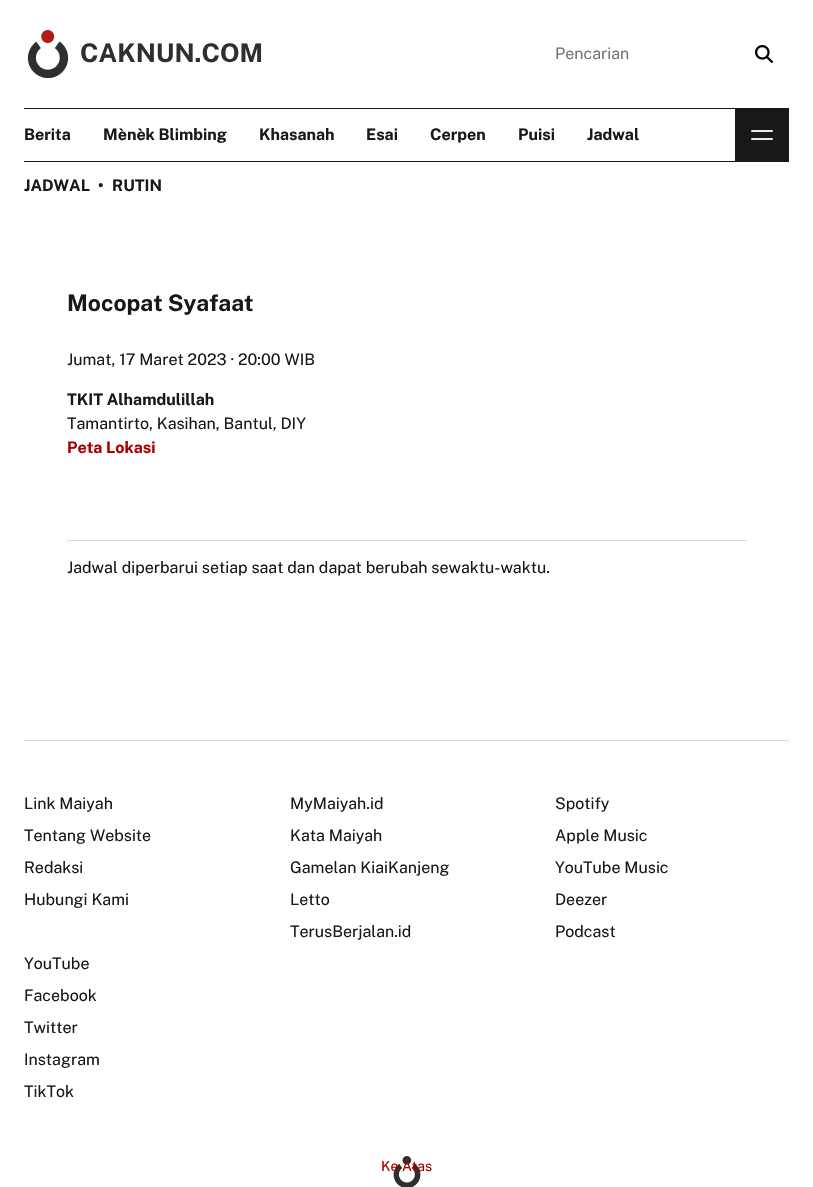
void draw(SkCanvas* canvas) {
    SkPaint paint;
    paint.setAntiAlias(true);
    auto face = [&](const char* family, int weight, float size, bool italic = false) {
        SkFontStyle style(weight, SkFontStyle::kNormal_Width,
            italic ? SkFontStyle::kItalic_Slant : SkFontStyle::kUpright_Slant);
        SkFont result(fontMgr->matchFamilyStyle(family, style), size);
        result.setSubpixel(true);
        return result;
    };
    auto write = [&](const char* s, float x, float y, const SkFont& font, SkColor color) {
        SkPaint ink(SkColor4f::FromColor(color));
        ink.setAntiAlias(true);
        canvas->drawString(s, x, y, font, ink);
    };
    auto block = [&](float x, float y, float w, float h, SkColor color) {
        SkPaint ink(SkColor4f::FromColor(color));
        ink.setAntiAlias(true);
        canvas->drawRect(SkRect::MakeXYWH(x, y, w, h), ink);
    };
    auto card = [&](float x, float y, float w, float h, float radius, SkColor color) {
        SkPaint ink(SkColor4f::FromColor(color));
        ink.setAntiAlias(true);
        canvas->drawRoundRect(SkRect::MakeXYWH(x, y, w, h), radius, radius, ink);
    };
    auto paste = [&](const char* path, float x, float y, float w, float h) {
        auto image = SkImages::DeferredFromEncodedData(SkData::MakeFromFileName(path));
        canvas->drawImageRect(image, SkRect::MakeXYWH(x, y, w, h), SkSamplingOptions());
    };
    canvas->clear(SK_ColorWHITE);
    paste("pic1.png", 27, 30, 42, 48);
    auto kFont1 = face("Public Sans", 700, 25.75f);
    write("CAKNUN.COM", 80, 62, kFont1, SkColorSetRGB(46, 47, 48));
    auto kFont2 = face("Public Sans", 400, 16);
    write("Pencarian", 555, 59, kFont2, SkColorSetRGB(117, 117, 117));
    paste("pic2.png", 755, 45, 18, 18);
    block(24, 108, 765, 1, SkColorSetRGB(23, 24, 25));
    auto kFont3 = face("Public Sans", 700, 16);
    write("Berita", 24, 140, kFont3, SkColorSetRGB(23, 24, 25));
    write("Mènèk Blimbing", 103, 140, kFont3, SkColorSetRGB(23, 24, 25));
    write("Khasanah", 259, 140, kFont3, SkColorSetRGB(23, 24, 25));
    write("Esai", 366, 140, kFont3, SkColorSetRGB(23, 24, 25));
    write("Cerpen", 430, 140, kFont3, SkColorSetRGB(23, 24, 25));
    write("Puisi", 518, 140, kFont3, SkColorSetRGB(23, 24, 25));
    write("Jadwal", 587, 140, kFont3, SkColorSetRGB(23, 24, 25));
    block(735, 109, 54, 52, SkColorSetRGB(23, 24, 25));
    card(751, 130, 22, 2, 1, SkColorSetRGB(232, 232, 232));
    card(751, 138, 22, 2, 1, SkColorSetRGB(232, 232, 232));
    block(24, 161, 765, 1, SkColorSetRGB(23, 24, 25));
    write("JADWAL", 24, 191, kFont3, SkColorSetRGB(23, 24, 25));
    write("•", 98, 191, kFont3, SkColorSetRGB(23, 24, 25));
    write("RUTIN", 112, 191, kFont3, SkColorSetRGB(23, 24, 25));
    auto kFont4 = face("Public Sans", 700, 22.75f);
    write("Mocopat Syafaat", 67, 311, kFont4, SkColorSetRGB(23, 24, 25));
    write("Jumat, 17 Maret 2023 · 20:00 WIB", 67, 365, kFont2, SkColorSetRGB(23, 24, 25));
    write("TKIT Alhamdulillah", 67, 405, kFont3, SkColorSetRGB(23, 24, 25));
    write("Tamantirto, Kasihan, Bantul, DIY", 67, 429, kFont2, SkColorSetRGB(23, 24, 25));
    write("Peta Lokasi", 67, 453, kFont3, SkColorSetRGB(170, 0, 0));
    block(67, 540, 680, 1, SkColorSetRGB(217, 217, 217));
    write("Jadwal diperbarui setiap saat dan dapat berubah sewaktu-waktu.", 67, 573, kFont2, SkColorSetRGB(23, 24, 25));
    block(24, 740, 765, 1, SkColorSetRGB(217, 217, 217));
    write("Link Maiyah", 24, 809, kFont2, SkColorSetRGB(23, 24, 25));
    write("Tentang Website", 24, 841, kFont2, SkColorSetRGB(23, 24, 25));
    write("Redaksi", 24, 873, kFont2, SkColorSetRGB(23, 24, 25));
    write("Hubungi Kami", 24, 905, kFont2, SkColorSetRGB(23, 24, 25));
    write("MyMaiyah.id", 290, 809, kFont2, SkColorSetRGB(23, 24, 25));
    write("Kata Maiyah", 290, 841, kFont2, SkColorSetRGB(23, 24, 25));
    write("Gamelan KiaiKanjeng", 290, 873, kFont2, SkColorSetRGB(23, 24, 25));
    write("Letto", 290, 905, kFont2, SkColorSetRGB(23, 24, 25));
    write("TerusBerjalan.id", 290, 937, kFont2, SkColorSetRGB(23, 24, 25));
    write("Spotify", 555, 809, kFont2, SkColorSetRGB(23, 24, 25));
    write("Apple Music", 555, 841, kFont2, SkColorSetRGB(23, 24, 25));
    write("YouTube Music", 555, 873, kFont2, SkColorSetRGB(23, 24, 25));
    write("Deezer", 555, 905, kFont2, SkColorSetRGB(23, 24, 25));
    write("Podcast", 555, 937, kFont2, SkColorSetRGB(23, 24, 25));
    write("YouTube", 24, 969, kFont2, SkColorSetRGB(23, 24, 25));
    write("Facebook", 24, 1001, kFont2, SkColorSetRGB(23, 24, 25));
    write("Twitter", 24, 1033, kFont2, SkColorSetRGB(23, 24, 25));
    write("Instagram", 24, 1065, kFont2, SkColorSetRGB(23, 24, 25));
    write("TikTok", 24, 1097, kFont2, SkColorSetRGB(23, 24, 25));
    paste("pic3.png", 393, 1156, 28, 31);
    auto kFont5 = face("Public Sans", 400, 14);
    write("Ke Atas", 381, 1171, kFont5, SkColorSetRGB(170, 0, 0));
}
